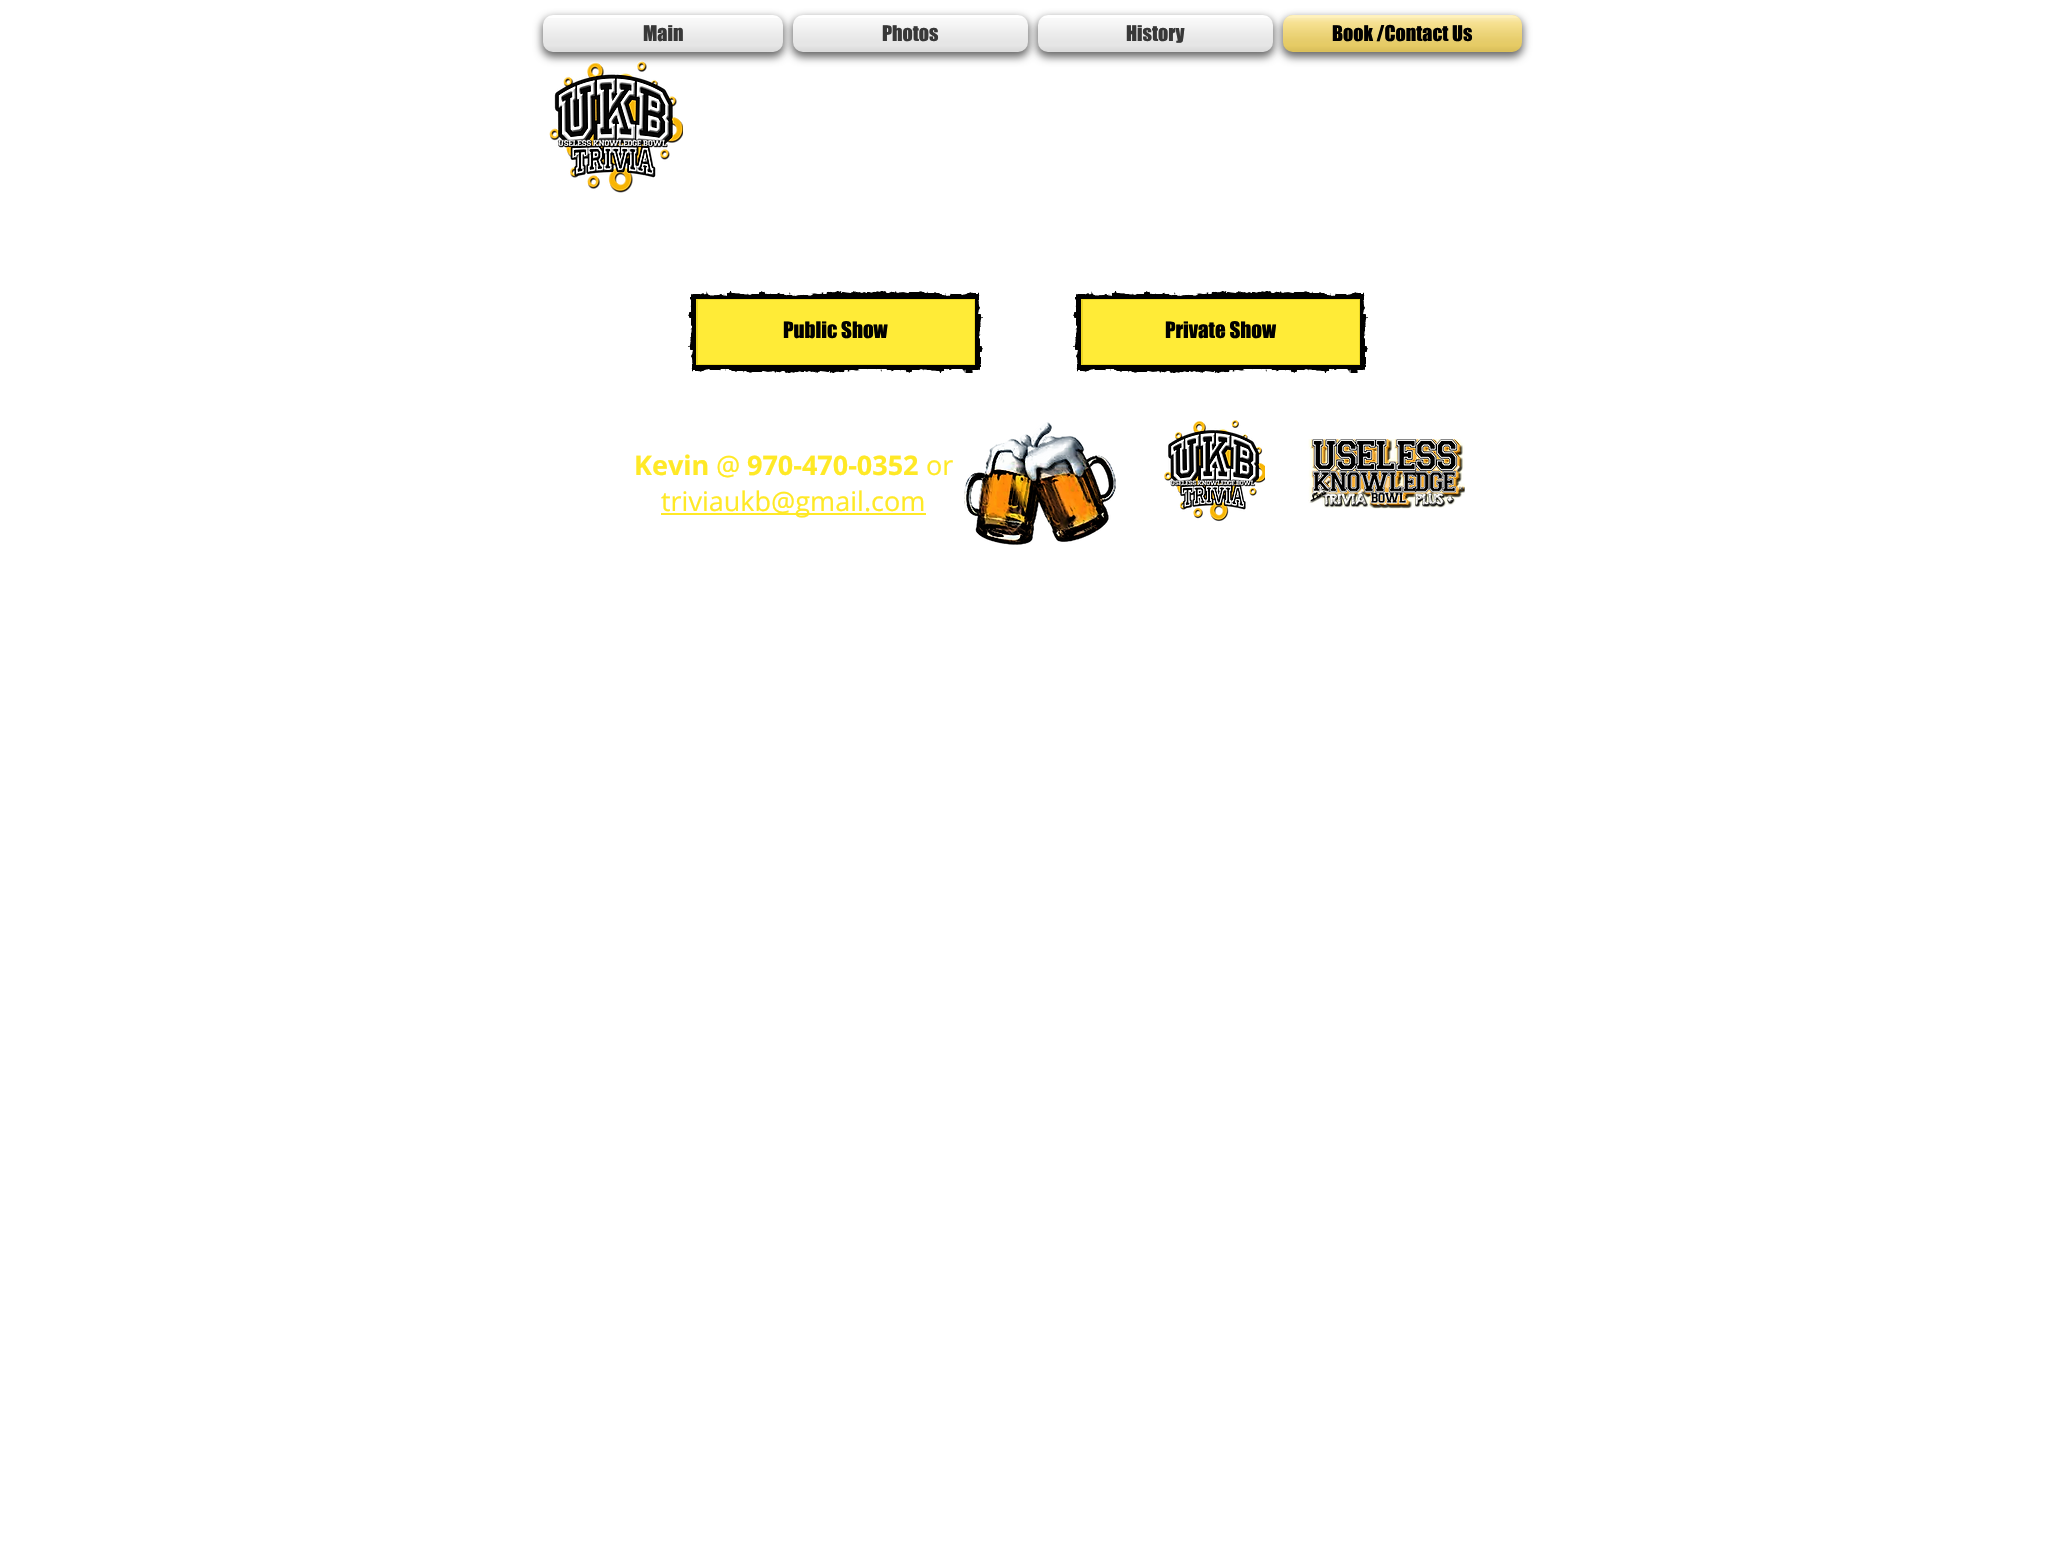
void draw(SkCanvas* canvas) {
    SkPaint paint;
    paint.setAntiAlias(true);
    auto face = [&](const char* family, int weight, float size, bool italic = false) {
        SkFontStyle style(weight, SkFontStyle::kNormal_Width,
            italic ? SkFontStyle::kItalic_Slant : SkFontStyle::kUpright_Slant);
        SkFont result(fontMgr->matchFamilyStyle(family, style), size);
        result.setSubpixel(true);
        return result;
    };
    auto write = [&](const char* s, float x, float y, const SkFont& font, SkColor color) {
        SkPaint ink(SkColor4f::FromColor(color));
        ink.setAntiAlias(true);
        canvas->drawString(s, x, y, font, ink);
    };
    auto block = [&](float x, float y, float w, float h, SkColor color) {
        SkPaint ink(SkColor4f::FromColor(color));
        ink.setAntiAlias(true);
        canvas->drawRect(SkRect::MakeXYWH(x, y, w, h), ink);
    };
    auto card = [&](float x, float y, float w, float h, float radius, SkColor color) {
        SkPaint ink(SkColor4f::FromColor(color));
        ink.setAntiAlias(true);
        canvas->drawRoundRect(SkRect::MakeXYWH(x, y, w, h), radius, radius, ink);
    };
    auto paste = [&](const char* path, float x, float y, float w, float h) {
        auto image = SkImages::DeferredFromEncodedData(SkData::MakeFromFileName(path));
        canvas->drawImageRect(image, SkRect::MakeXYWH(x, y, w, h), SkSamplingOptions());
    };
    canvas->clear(SK_ColorWHITE);
    paint.setColor(SkColorSetARGB(153, 0, 0, 0));
    paint.setMaskFilter(SkMaskFilter::MakeBlur(kNormal_SkBlurStyle, 4.5f));
    canvas->drawRoundRect(SkRect::MakeXYWH(542, 18, 242, 39), 11, 11, paint);
    paint.setMaskFilter(nullptr);
    card(543, 15, 240, 37, 10, SK_ColorWHITE);
    paste("pic1.png", 543, 18, 240, 34);
    auto kFont1 = face("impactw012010", 400, 20);
    write("Main", 643, 41, kFont1, SkColorSetRGB(56, 56, 56));
    paint.setMaskFilter(SkMaskFilter::MakeBlur(kNormal_SkBlurStyle, 4.5f));
    canvas->drawRoundRect(SkRect::MakeXYWH(792, 18, 237, 39), 11, 11, paint);
    paint.setMaskFilter(nullptr);
    card(793, 15, 235, 37, 10, SK_ColorWHITE);
    paste("pic2.png", 793, 18, 235, 34);
    write("Photos", 882, 41, kFont1, SkColorSetRGB(56, 56, 56));
    paint.setMaskFilter(SkMaskFilter::MakeBlur(kNormal_SkBlurStyle, 4.5f));
    canvas->drawRoundRect(SkRect::MakeXYWH(1037, 18, 237, 39), 11, 11, paint);
    paint.setMaskFilter(nullptr);
    card(1038, 15, 235, 37, 10, SK_ColorWHITE);
    paste("pic3.png", 1038, 18, 235, 34);
    write("History", 1126, 41, kFont1, SkColorSetRGB(56, 56, 56));
    paint.setMaskFilter(SkMaskFilter::MakeBlur(kNormal_SkBlurStyle, 4.5f));
    canvas->drawRoundRect(SkRect::MakeXYWH(1282, 18, 241, 39), 11, 11, paint);
    paint.setMaskFilter(nullptr);
    card(1283, 15, 239, 37, 10, SkColorSetRGB(255, 222, 95));
    paste("pic4.png", 1283, 15, 239, 37);
    paste("pic5.png", 1283, 18, 239, 34);
    write("Book /Contact Us", 1332, 41, kFont1, SK_ColorBLACK);
    paste("pic6.png", 549, 60, 134, 133);
    paste("pic7.png", 688, 291, 291, 78);
    paste("pic8.png", 692, 295, 291, 78);
    block(696, 299, 279, 66, SkColorSetARGB(235, 255, 233, 38));
    auto kFont2 = face("impactw012010", 400, 21);
    write("Public Show", 783, 338, kFont2, SK_ColorBLACK);
    paste("pic7.png", 1073, 291, 291, 78);
    paste("pic8.png", 1077, 295, 291, 78);
    block(1081, 299, 279, 66, SkColorSetARGB(235, 255, 233, 38));
    write("Private Show", 1165, 338, kFont2, SK_ColorBLACK);
    auto kFont3 = face("Open Sans", 700, 27);
    write("Kevin", 634, 475, kFont3, SkColorSetRGB(255, 233, 38));
    auto kFont4 = face("Open Sans", 400, 27);
    write("@", 716, 475, kFont4, SkColorSetRGB(255, 233, 38));
    write("970-470-0352", 747, 475, kFont3, SkColorSetRGB(255, 233, 38));
    write("or", 926, 475, kFont4, SkColorSetRGB(255, 233, 38));
    block(661, 513, 265, 2, SkColorSetRGB(255, 233, 38));
    write("triviaukb@gmail.com", 661, 511, kFont4, SkColorSetRGB(255, 233, 38));
    paste("pic9.png", 964, 422, 152, 123);
    paste("pic10.png", 1164, 420, 101, 102);
    paste("pic11.png", 1308, 439, 157, 70);
}
